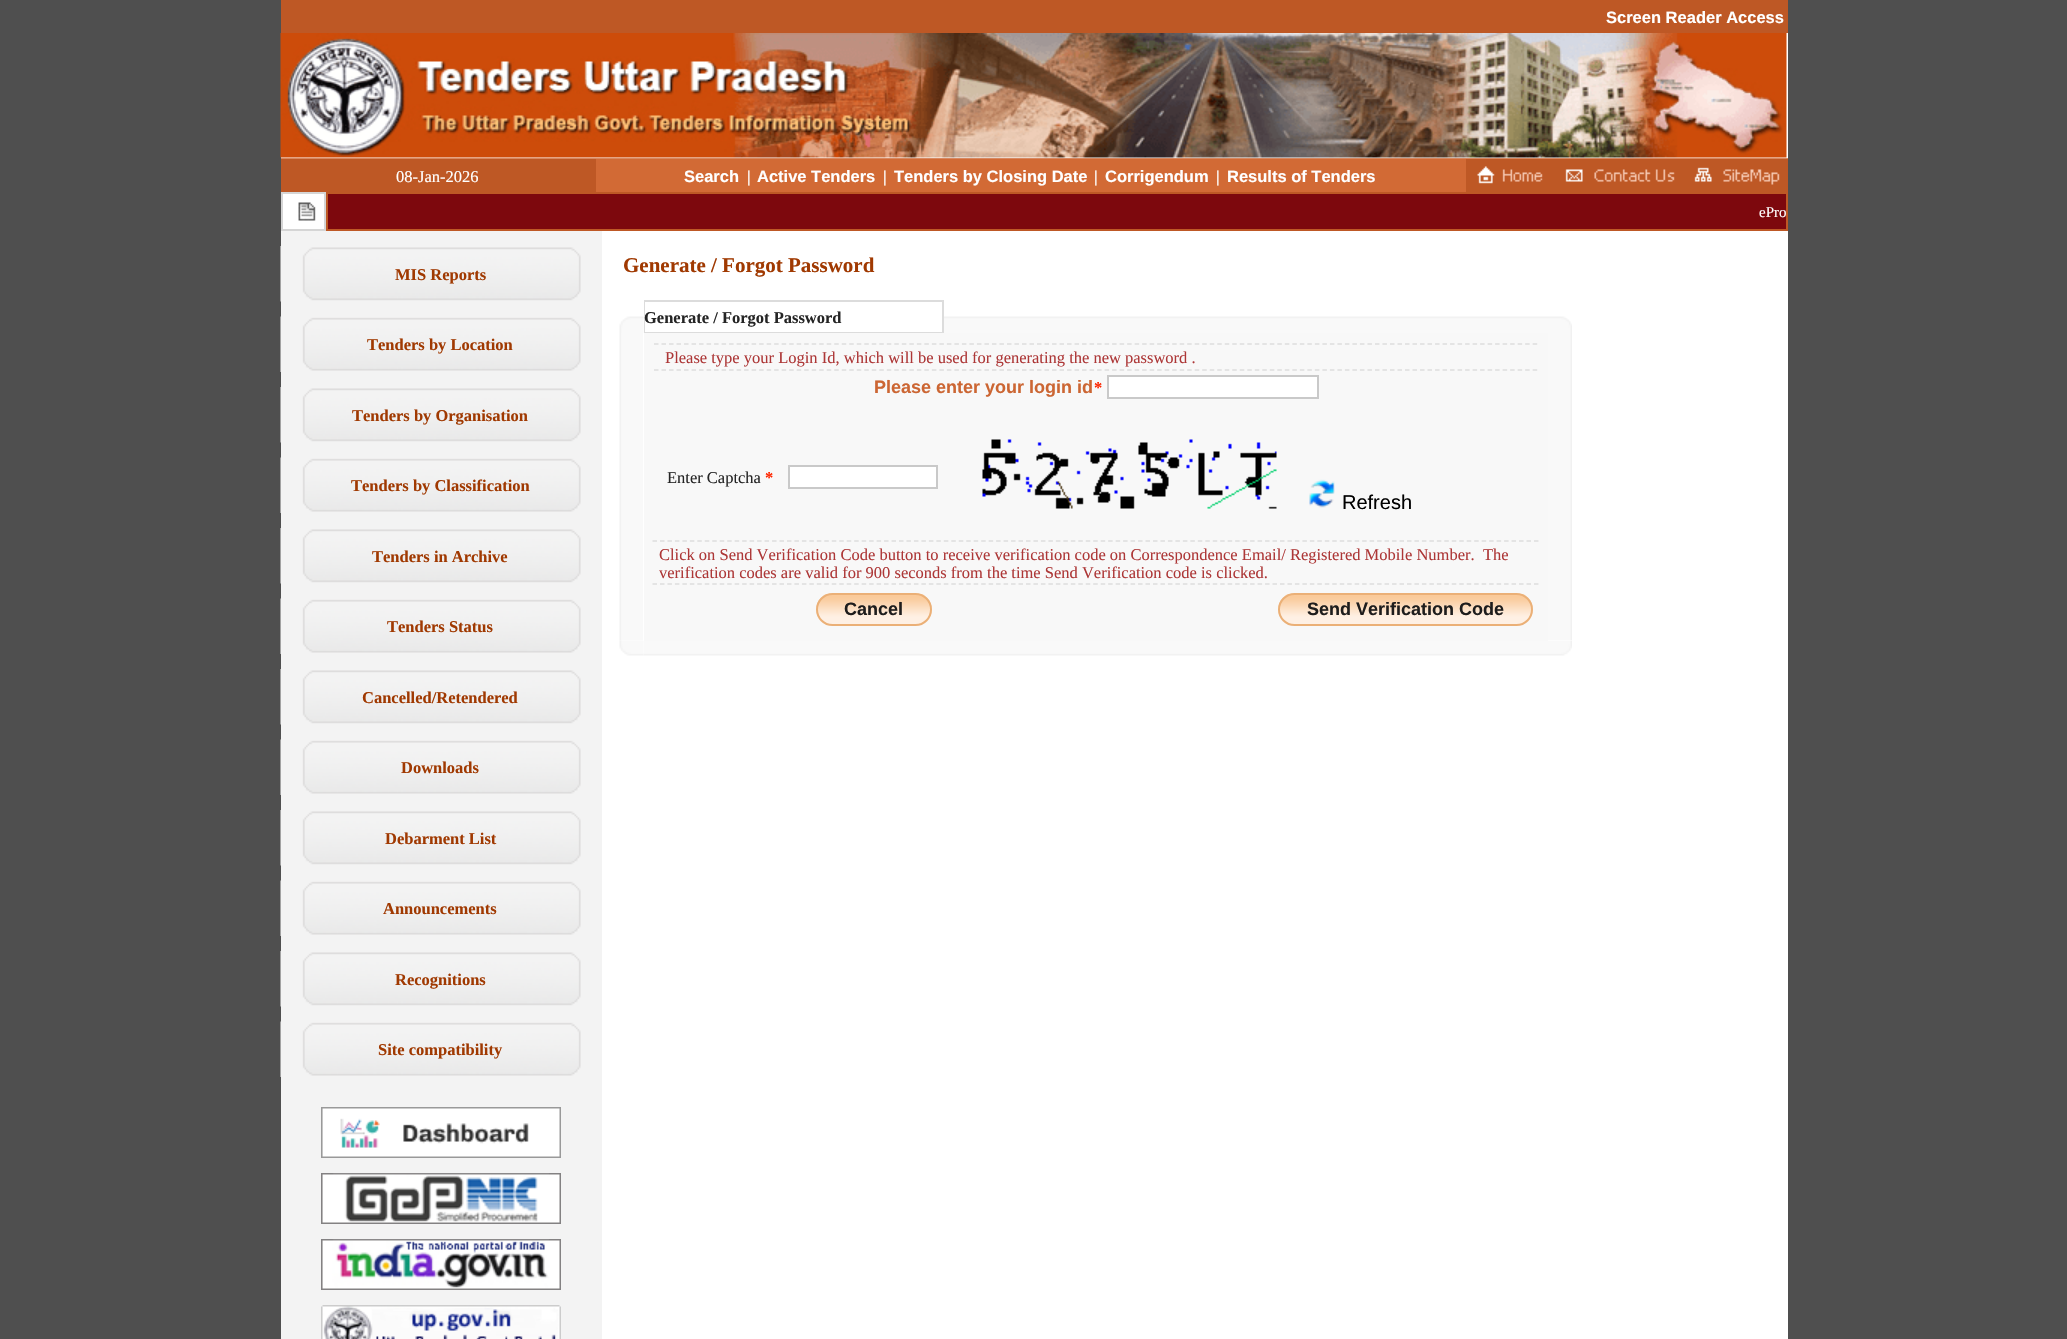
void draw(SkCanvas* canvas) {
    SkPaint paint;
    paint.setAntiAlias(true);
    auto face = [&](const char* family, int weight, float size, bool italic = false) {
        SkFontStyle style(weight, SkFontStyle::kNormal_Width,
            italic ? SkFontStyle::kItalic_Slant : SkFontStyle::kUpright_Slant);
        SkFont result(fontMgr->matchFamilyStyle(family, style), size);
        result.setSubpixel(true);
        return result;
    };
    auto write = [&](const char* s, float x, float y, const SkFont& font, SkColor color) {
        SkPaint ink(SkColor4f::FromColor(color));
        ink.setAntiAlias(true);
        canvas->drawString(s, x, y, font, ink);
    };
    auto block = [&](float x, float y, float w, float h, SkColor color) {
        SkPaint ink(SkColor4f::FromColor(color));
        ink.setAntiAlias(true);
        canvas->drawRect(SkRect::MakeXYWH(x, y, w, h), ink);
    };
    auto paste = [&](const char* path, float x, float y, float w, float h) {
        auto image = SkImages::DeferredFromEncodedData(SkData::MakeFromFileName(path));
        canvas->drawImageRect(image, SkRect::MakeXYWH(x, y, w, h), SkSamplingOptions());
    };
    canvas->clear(SkColorSetRGB(79, 79, 79));
    block(281, 33, 1507, 1306, SK_ColorWHITE);
    block(281, 0, 1507, 33, SkColorSetRGB(190, 88, 37));
    auto kFont1 = face("Liberation Sans", 700, 16.5f);
    write("Screen Reader Access", 1606, 23, kFont1, SK_ColorWHITE);
    paste("pic1.png", 280, 33, 1507, 125);
    block(281, 158, 1507, 1, SkColorSetRGB(216, 136, 96));
    block(281, 159, 315, 33, SkColorSetRGB(190, 88, 37));
    auto kFont2 = face("Liberation Serif", 400, 16.5f);
    write("08-Jan-2026", 396, 182, kFont2, SK_ColorWHITE);
    block(596, 159, 870, 33, SkColorSetRGB(210, 106, 53));
    write("Search", 684, 182, kFont1, SK_ColorWHITE);
    auto kFont3 = face("Liberation Serif", 700, 16.5f);
    write("|", 747, 182, kFont3, SK_ColorWHITE);
    write("Active Tenders", 757, 182, kFont1, SK_ColorWHITE);
    write("|", 883, 182, kFont3, SK_ColorWHITE);
    write("Tenders by Closing Date", 894, 182, kFont1, SK_ColorWHITE);
    write("|", 1094, 182, kFont3, SK_ColorWHITE);
    write("Corrigendum", 1105, 182, kFont1, SK_ColorWHITE);
    write("|", 1216, 182, kFont3, SK_ColorWHITE);
    write("Results of Tenders", 1227, 182, kFont1, SK_ColorWHITE);
    block(1466, 159, 322, 33, SkColorSetRGB(190, 88, 37));
    paste("pic2.png", 1477, 166, 66, 18);
    paste("pic3.png", 1565, 169, 110, 13);
    paste("pic4.png", 1694, 167, 86, 18);
    paint.setStyle(SkPaint::kStroke_Style);
    paint.setStrokeWidth(2);
    paint.setColor(SkColorSetRGB(213, 213, 213));
    canvas->drawRect(SkRect::MakeXYWH(282, 193, 43, 37), paint);
    paste("pic5.png", 298, 202, 18, 19);
    paint.setStyle(SkPaint::kFill_Style);
    paint.setColor(SkColorSetRGB(125, 8, 13));
    canvas->drawRect(SkRect::MakeXYWH(327, 193, 1460, 37), paint);
    paint.setStyle(SkPaint::kStroke_Style);
    paint.setColor(SkColorSetRGB(190, 88, 37));
    canvas->drawRect(SkRect::MakeXYWH(327, 193, 1460, 37), paint);
    auto kFont4 = face("Liberation Serif", 400, 15);
    write("ePro", 1759, 217, kFont4, SK_ColorWHITE);
    block(281, 231, 321, 1108, SkColorSetRGB(243, 243, 243));
    paste("pic6.png", 280, 246, 301, 56);
    write("MIS Reports", 395, 280, kFont3, SkColorSetRGB(160, 57, 1));
    paste("pic7.png", 280, 316, 301, 56);
    write("Tenders by Location", 367, 350, kFont3, SkColorSetRGB(160, 57, 1));
    paste("pic6.png", 280, 387, 301, 56);
    write("Tenders by Organisation", 352, 421, kFont3, SkColorSetRGB(160, 57, 1));
    paste("pic7.png", 280, 457, 301, 56);
    write("Tenders by Classification", 351, 491, kFont3, SkColorSetRGB(160, 57, 1));
    paste("pic6.png", 280, 528, 301, 56);
    write("Tenders in Archive", 372, 562, kFont3, SkColorSetRGB(160, 57, 1));
    paste("pic7.png", 280, 598, 301, 56);
    write("Tenders Status", 387, 632, kFont3, SkColorSetRGB(160, 57, 1));
    paste("pic6.png", 280, 669, 301, 56);
    write("Cancelled/Retendered", 362, 703, kFont3, SkColorSetRGB(160, 57, 1));
    paste("pic7.png", 280, 739, 301, 56);
    write("Downloads", 401, 773, kFont3, SkColorSetRGB(160, 57, 1));
    paste("pic6.png", 280, 810, 301, 56);
    write("Debarment List", 385, 844, kFont3, SkColorSetRGB(160, 57, 1));
    paste("pic7.png", 280, 880, 301, 56);
    write("Announcements", 383, 914, kFont3, SkColorSetRGB(160, 57, 1));
    paste("pic6.png", 280, 951, 301, 56);
    write("Recognitions", 395, 985, kFont3, SkColorSetRGB(160, 57, 1));
    paste("pic7.png", 280, 1021, 301, 56);
    write("Site compatibility", 378, 1055, kFont3, SkColorSetRGB(160, 57, 1));
    paste("pic8.png", 321, 1107, 240, 51);
    paste("pic9.png", 321, 1173, 240, 51);
    paste("pic10.png", 321, 1239, 240, 51);
    paste("pic11.png", 321, 1305, 240, 34);
    auto kFont5 = face("Liberation Serif", 700, 21);
    write("Generate / Forgot Password", 623, 272, kFont5, SkColorSetRGB(160, 57, 1));
    paste("pic12.png", 619, 316, 24, 17);
    paste("pic13.png", 643, 316, 905, 17);
    block(644, 300, 300, 33, SkColorSetRGB(220, 220, 220));
    block(645, 302, 297, 30, SK_ColorWHITE);
    write("Generate / Forgot Password", 644, 323, kFont3, SkColorSetRGB(37, 37, 37));
    paste("pic14.png", 1548, 316, 24, 17);
    paste("pic15.png", 619, 333, 24, 308);
    block(644, 333, 904, 308, SkColorSetRGB(248, 248, 248));
    paint.setStrokeWidth(1.5f);
    paint.setColor(SkColorSetRGB(222, 222, 222));
    paint.setPathEffect(SkDashPathEffect::Make({{4.5f, 3.01f}}, 0));
    canvas->drawPath(SkPathBuilder().moveTo(654, 344).lineTo(1537.5f, 344).detach(), paint);
    paint.setPathEffect(nullptr);
    paint.setPathEffect(SkDashPathEffect::Make({{4.5f, 3.01f}}, 0));
    canvas->drawPath(SkPathBuilder().moveTo(654, 370).lineTo(1537.5f, 370).detach(), paint);
    paint.setPathEffect(nullptr);
    write("Please type your Login Id, which will be used for generating the new password .", 665, 363, kFont2, SkColorSetRGB(173, 55, 55));
    auto kFont6 = face("Liberation Sans", 700, 18);
    write("Please enter your login id", 874, 393, kFont6, SkColorSetRGB(204, 102, 51));
    write("*", 1094, 393, kFont3, SkColorSetRGB(255, 38, 0));
    paint.setStyle(SkPaint::kFill_Style);
    paint.setColor(SK_ColorWHITE);
    canvas->drawRect(SkRect::MakeXYWH(1108, 376, 210, 22), paint);
    paint.setStyle(SkPaint::kStroke_Style);
    paint.setStrokeWidth(2);
    paint.setColor(SkColorSetRGB(201, 201, 201));
    canvas->drawRect(SkRect::MakeXYWH(1108, 376, 210, 22), paint);
    write("Enter Captcha", 667, 483, kFont2, SkColorSetRGB(37, 37, 37));
    write("*", 765, 483, kFont3, SkColorSetRGB(255, 38, 0));
    paint.setStyle(SkPaint::kFill_Style);
    paint.setColor(SK_ColorWHITE);
    canvas->drawRect(SkRect::MakeXYWH(789, 466, 148, 22), paint);
    paint.setStyle(SkPaint::kStroke_Style);
    paint.setColor(SkColorSetRGB(201, 201, 201));
    canvas->drawRect(SkRect::MakeXYWH(789, 466, 148, 22), paint);
    paste("pic16.png", 982, 439, 295, 70);
    paste("pic17.png", 1309, 479, 26, 29);
    auto kFont7 = face("Liberation Sans", 400, 20);
    write("Refresh", 1342, 509, kFont7, SK_ColorBLACK);
    paint.setStrokeWidth(1.5f);
    paint.setColor(SkColorSetRGB(222, 222, 222));
    paint.setPathEffect(SkDashPathEffect::Make({{4.5f, 2.97f}}, 0));
    canvas->drawPath(SkPathBuilder().moveTo(652.5f, 541).lineTo(1539, 541).detach(), paint);
    paint.setPathEffect(nullptr);
    paint.setPathEffect(SkDashPathEffect::Make({{4.5f, 2.97f}}, 0));
    canvas->drawPath(SkPathBuilder().moveTo(652.5f, 584).lineTo(1539, 584).detach(), paint);
    paint.setPathEffect(nullptr);
    write("Click on Send Verification Code button to receive verification code on Correspondence Email/ Registered Mobile Number.", 659, 560, kFont2, SkColorSetRGB(173, 55, 55));
    write("The", 1483, 560, kFont2, SkColorSetRGB(173, 55, 55));
    write("verification codes are valid for 900 seconds from the time Send Verification code is clicked.", 659, 578, kFont2, SkColorSetRGB(173, 55, 55));
    canvas->save();
    canvas->clipPath(SkPathBuilder().moveTo(832.5f, 593).lineTo(915.5f, 593).cubicTo(924.5f, 593, 932, 600.5f, 932, 609.5f).cubicTo(932, 618.5f, 924.5f, 626, 915.5f, 626).lineTo(832.5f, 626).cubicTo(823.5f, 626, 816, 618.5f, 816, 609.5f).cubicTo(816, 600.5f, 823.5f, 593, 832.5f, 593).close().detach(), true);
    paint.setStyle(SkPaint::kFill_Style);
    {
        const SkColor colors[] = {SkColorSetRGB(250, 201, 153), SkColorSetRGB(250, 202, 154), SkColorSetRGB(250, 205, 161), SkColorSetRGB(254, 238, 223), SkColorSetRGB(254, 240, 228), SkColorSetRGB(254, 240, 228)};
        const float stops[] = {0, 0.1f, 0.19f, 0.71f, 0.78f, 1};
        const SkPoint ends[] = {{874, 594}, {874, 624}};
        paint.setShader(SkGradientShader::MakeLinear(ends, colors, stops, 6, SkTileMode::kClamp));
        paint.setAlpha(255);
    }
    canvas->drawRect(SkRect::MakeXYWH(816, 594, 116, 30), paint);
    canvas->restore();
    paint.setStyle(SkPaint::kStroke_Style);
    paint.setStrokeWidth(2);
    paint.setShader(nullptr);
    paint.setColor(SkColorSetRGB(235, 176, 119));
    canvas->drawRoundRect(SkRect::MakeXYWH(817, 594, 114, 31), 15.5f, 15.5f, paint);
    write("Cancel", 844, 615, kFont6, SkColorSetRGB(30, 29, 29));
    canvas->save();
    canvas->clipPath(SkPathBuilder().moveTo(1294.5f, 593).lineTo(1516.5f, 593).cubicTo(1525.5f, 593, 1533, 600.5f, 1533, 609.5f).cubicTo(1533, 618.5f, 1525.5f, 626, 1516.5f, 626).lineTo(1294.5f, 626).cubicTo(1285.5f, 626, 1278, 618.5f, 1278, 609.5f).cubicTo(1278, 600.5f, 1285.5f, 593, 1294.5f, 593).close().detach(), true);
    paint.setStyle(SkPaint::kFill_Style);
    {
        const SkColor colors[] = {SkColorSetRGB(250, 201, 153), SkColorSetRGB(250, 202, 154), SkColorSetRGB(250, 205, 161), SkColorSetRGB(254, 238, 223), SkColorSetRGB(254, 240, 228), SkColorSetRGB(254, 240, 228)};
        const float stops[] = {0, 0.1f, 0.19f, 0.71f, 0.78f, 1};
        const SkPoint ends[] = {{1406, 594}, {1406, 624}};
        paint.setShader(SkGradientShader::MakeLinear(ends, colors, stops, 6, SkTileMode::kClamp));
        paint.setAlpha(255);
    }
    canvas->drawRect(SkRect::MakeXYWH(1278, 594, 255, 30), paint);
    canvas->restore();
    paint.setStyle(SkPaint::kStroke_Style);
    paint.setShader(nullptr);
    paint.setColor(SkColorSetRGB(235, 176, 119));
    canvas->drawRoundRect(SkRect::MakeXYWH(1279, 594, 253, 31), 15.5f, 15.5f, paint);
    write("Send Verification Code", 1307, 615, kFont6, SkColorSetRGB(30, 29, 29));
    paste("pic18.png", 1548, 333, 24, 308);
    paste("pic20.png", 643, 641, 905, 15);
    paste("pic19.png", 619, 640, 25, 16);
    paste("pic21.png", 1548, 641, 24, 15);
}
